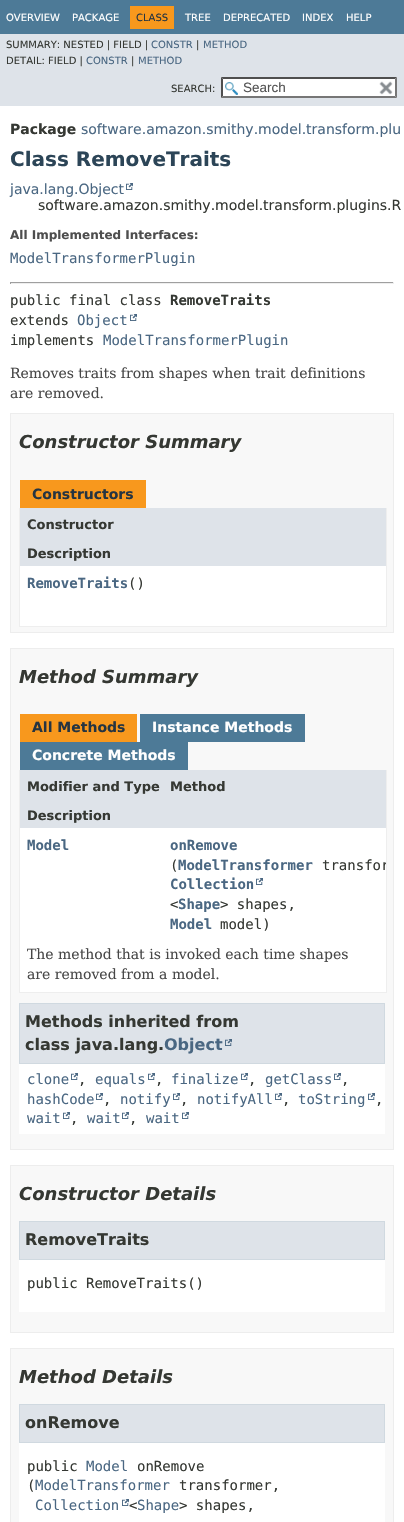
void draw(SkCanvas* canvas) {
    SkPaint paint;
    paint.setAntiAlias(true);
    auto face = [&](const char* family, int weight, float size, bool italic = false) {
        SkFontStyle style(weight, SkFontStyle::kNormal_Width,
            italic ? SkFontStyle::kItalic_Slant : SkFontStyle::kUpright_Slant);
        SkFont result(fontMgr->matchFamilyStyle(family, style), size);
        result.setSubpixel(true);
        return result;
    };
    auto write = [&](const char* s, float x, float y, const SkFont& font, SkColor color) {
        SkPaint ink(SkColor4f::FromColor(color));
        ink.setAntiAlias(true);
        canvas->drawString(s, x, y, font, ink);
    };
    auto block = [&](float x, float y, float w, float h, SkColor color) {
        SkPaint ink(SkColor4f::FromColor(color));
        ink.setAntiAlias(true);
        canvas->drawRect(SkRect::MakeXYWH(x, y, w, h), ink);
    };
    auto paste = [&](const char* path, float x, float y, float w, float h) {
        auto image = SkImages::DeferredFromEncodedData(SkData::MakeFromFileName(path));
        canvas->drawImageRect(image, SkRect::MakeXYWH(x, y, w, h), SkSamplingOptions());
    };
    canvas->clear(SK_ColorWHITE);
    block(0, 0, 404, 34, SkColorSetRGB(77, 122, 151));
    auto kFont1 = face("DejaVu Sans", 400, 10);
    write("OVERVIEW", 6, 21, kFont1, SK_ColorWHITE);
    write("PACKAGE", 72, 21, kFont1, SK_ColorWHITE);
    block(130, 6, 44, 23, SkColorSetRGB(248, 152, 29));
    write("CLASS", 136, 21, kFont1, SkColorSetRGB(37, 52, 65));
    write("TREE", 185, 21, kFont1, SK_ColorWHITE);
    write("DEPRECATED", 223, 21, kFont1, SK_ColorWHITE);
    write("INDEX", 302, 21, kFont1, SK_ColorWHITE);
    write("HELP", 346, 21, kFont1, SK_ColorWHITE);
    block(0, 34, 404, 72, SkColorSetRGB(222, 227, 233));
    write("SUMMARY: NESTED | FIELD |", 6, 48, kFont1, SkColorSetRGB(53, 56, 51));
    write("CONSTR", 151, 48, kFont1, SkColorSetRGB(74, 103, 130));
    write("|", 196, 48, kFont1, SkColorSetRGB(53, 56, 51));
    write("METHOD", 203, 48, kFont1, SkColorSetRGB(74, 103, 130));
    write("DETAIL: FIELD |", 6, 64, kFont1, SkColorSetRGB(53, 56, 51));
    write("CONSTR", 86, 64, kFont1, SkColorSetRGB(74, 103, 130));
    write("|", 131, 64, kFont1, SkColorSetRGB(53, 56, 51));
    write("METHOD", 138, 64, kFont1, SkColorSetRGB(74, 103, 130));
    write("SEARCH:", 171, 92, kFont1, SkColorSetRGB(53, 56, 51));
    block(221, 77, 176, 21, SK_ColorWHITE);
    paste("pic1.png", 225, 82, 13, 13);
    paint.setColor(SkColorSetRGB(79, 79, 79));
    canvas->drawPath(SkPathBuilder().moveTo(221, 77).lineTo(397, 77).lineTo(395, 79).lineTo(223, 79).close().detach(), paint);
    paint.setColor(SkColorSetRGB(118, 118, 118));
    canvas->drawPath(SkPathBuilder().moveTo(397, 77).lineTo(397, 98).lineTo(395, 96).lineTo(395, 79).close().detach(), paint);
    canvas->drawPath(SkPathBuilder().moveTo(397, 98).lineTo(221, 98).lineTo(223, 96).lineTo(395, 96).close().detach(), paint);
    paint.setColor(SkColorSetRGB(79, 79, 79));
    canvas->drawPath(SkPathBuilder().moveTo(221, 98).lineTo(221, 77).lineTo(223, 79).lineTo(223, 96).close().detach(), paint);
    auto kFont2 = face("Liberation Sans", 400, 13.5f);
    write("Search", 243, 92, kFont2, SkColorSetRGB(84, 84, 84));
    paste("pic2.png", 379, 81, 14, 14);
    auto kFont3 = face("DejaVu Sans", 700, 14);
    write("Package", 10, 134, kFont3, SkColorSetRGB(53, 56, 51));
    auto kFont4 = face("DejaVu Sans", 400, 14);
    write("software.amazon.smithy.model.transform.plu", 81, 134, kFont4, SkColorSetRGB(74, 103, 130));
    auto kFont5 = face("DejaVu Sans", 700, 20);
    write("Class RemoveTraits", 10, 166, kFont5, SkColorSetRGB(44, 69, 87));
    write("java.lang.Object", 10, 194, kFont4, SkColorSetRGB(74, 103, 130));
    paste("pic3.png", 126, 183, 7, 7);
    write("software.amazon.smithy.model.transform.plugins.R", 38, 210, kFont4, SkColorSetRGB(53, 56, 51));
    auto kFont6 = face("DejaVu Sans", 700, 12);
    write("All Implemented Interfaces:", 10, 239, kFont6, SkColorSetRGB(78, 78, 78));
    auto kFont7 = face("DejaVu Sans Mono", 400, 14);
    write("ModelTransformerPlugin", 10, 263, kFont7, SkColorSetRGB(74, 103, 130));
    block(10, 282, 384, 1, SkColorSetRGB(159, 159, 159));
    block(393, 282, 1, 2, SkColorSetRGB(238, 238, 238));
    block(10, 283, 384, 1, SkColorSetRGB(238, 238, 238));
    block(10, 282, 1, 2, SkColorSetRGB(159, 159, 159));
    write("public final class", 10, 305, kFont7, SkColorSetRGB(53, 56, 51));
    auto kFont8 = face("DejaVu Sans Mono", 700, 14);
    write("RemoveTraits", 170, 305, kFont8, SkColorSetRGB(53, 56, 51));
    write("extends", 10, 325, kFont7, SkColorSetRGB(53, 56, 51));
    write("Object", 77, 325, kFont7, SkColorSetRGB(74, 103, 130));
    paste("pic3.png", 130, 314, 7, 7);
    write("implements", 10, 345, kFont7, SkColorSetRGB(53, 56, 51));
    write("ModelTransformerPlugin", 103, 345, kFont7, SkColorSetRGB(74, 103, 130));
    auto kFont9 = face("DejaVu Serif", 400, 14);
    write("Removes traits from shapes when trait definitions", 10, 378, kFont9, SkColorSetRGB(71, 71, 71));
    write("are removed.", 10, 398, kFont9, SkColorSetRGB(71, 71, 71));
    paint.setColor(SkColorSetRGB(248, 248, 248));
    canvas->drawRect(SkRect::MakeXYWH(10.5f, 413.5f, 383, 219), paint);
    paint.setStyle(SkPaint::kStroke_Style);
    paint.setStrokeWidth(1);
    paint.setColor(SkColorSetRGB(237, 237, 237));
    canvas->drawRect(SkRect::MakeXYWH(10.5f, 413.5f, 383, 219), paint);
    auto kFont10 = face("DejaVu Sans", 700, 18, true);
    write("Constructor Summary", 19, 448, kFont10, SkColorSetRGB(53, 56, 51));
    block(20, 480, 126, 28, SkColorSetRGB(248, 152, 29));
    write("Constructors", 32, 499, kFont3, SkColorSetRGB(37, 52, 65));
    block(386, 508, 1, 119, SkColorSetRGB(238, 238, 238));
    block(19, 626, 368, 1, SkColorSetRGB(238, 238, 238));
    block(19, 508, 1, 119, SkColorSetRGB(238, 238, 238));
    block(20, 508, 366, 58, SkColorSetRGB(222, 227, 233));
    auto kFont11 = face("DejaVu Sans", 700, 13);
    write("Constructor", 27, 529, kFont11, SkColorSetRGB(53, 56, 51));
    write("Description", 27, 558, kFont11, SkColorSetRGB(53, 56, 51));
    block(20, 566, 366, 60, SK_ColorWHITE);
    write("RemoveTraits", 27, 588, kFont8, SkColorSetRGB(74, 103, 130));
    write("()", 128, 588, kFont7, SkColorSetRGB(53, 56, 51));
    paint.setStyle(SkPaint::kFill_Style);
    paint.setColor(SkColorSetRGB(248, 248, 248));
    canvas->drawRect(SkRect::MakeXYWH(10.5f, 648.5f, 383, 501), paint);
    paint.setStyle(SkPaint::kStroke_Style);
    paint.setColor(SkColorSetRGB(237, 237, 237));
    canvas->drawRect(SkRect::MakeXYWH(10.5f, 648.5f, 383, 501), paint);
    write("Method Summary", 19, 683, kFont10, SkColorSetRGB(53, 56, 51));
    block(20, 714, 117, 28, SkColorSetRGB(248, 152, 29));
    write("All Methods", 32, 732, kFont3, SkColorSetRGB(37, 52, 65));
    block(140, 714, 165, 28, SkColorSetRGB(77, 122, 151));
    write("Instance Methods", 152, 732, kFont3, SK_ColorWHITE);
    block(20, 742, 168, 28, SkColorSetRGB(77, 122, 151));
    write("Concrete Methods", 32, 760, kFont3, SK_ColorWHITE);
    block(386, 770, 1, 223, SkColorSetRGB(238, 238, 238));
    block(19, 992, 368, 1, SkColorSetRGB(238, 238, 238));
    block(19, 770, 1, 223, SkColorSetRGB(238, 238, 238));
    block(20, 770, 366, 29, SkColorSetRGB(222, 227, 233));
    write("Modifier and Type", 27, 791, kFont11, SkColorSetRGB(53, 56, 51));
    write("Method", 170, 791, kFont11, SkColorSetRGB(53, 56, 51));
    block(20, 799, 366, 29, SkColorSetRGB(222, 227, 233));
    write("Description", 27, 820, kFont11, SkColorSetRGB(53, 56, 51));
    block(20, 828, 366, 109, SK_ColorWHITE);
    write("Model", 27, 850, kFont8, SkColorSetRGB(74, 103, 130));
    write("onRemove", 170, 850, kFont8, SkColorSetRGB(74, 103, 130));
    write("(", 170, 870, kFont7, SkColorSetRGB(53, 56, 51));
    write("ModelTransformer", 178, 870, kFont8, SkColorSetRGB(74, 103, 130));
    canvas->save();
    canvas->clipRect(SkRect::MakeXYWH(163, 828, 223, 109));
    write("transfor", 322, 870, kFont7, SkColorSetRGB(53, 56, 51));
    canvas->restore();
    write("Collection", 170, 889, kFont8, SkColorSetRGB(74, 103, 130));
    paste("pic3.png", 256, 878, 7, 7);
    write("<", 170, 909, kFont7, SkColorSetRGB(53, 56, 51));
    write("Shape", 178, 909, kFont8, SkColorSetRGB(74, 103, 130));
    write("> shapes,", 220, 909, kFont7, SkColorSetRGB(53, 56, 51));
    write("Model", 170, 929, kFont8, SkColorSetRGB(74, 103, 130));
    write("model)", 220, 929, kFont7, SkColorSetRGB(53, 56, 51));
    block(20, 937, 366, 55, SK_ColorWHITE);
    write("The method that is invoked each time shapes", 27, 959, kFont9, SkColorSetRGB(71, 71, 71));
    write("are removed from a model.", 27, 979, kFont9, SkColorSetRGB(71, 71, 71));
    block(19, 1064, 366, 70, SK_ColorWHITE);
    paint.setStyle(SkPaint::kFill_Style);
    paint.setColor(SkColorSetRGB(222, 227, 233));
    canvas->drawRect(SkRect::MakeXYWH(19.5f, 1003.5f, 365, 60), paint);
    paint.setStyle(SkPaint::kStroke_Style);
    paint.setColor(SkColorSetRGB(208, 217, 224));
    canvas->drawRect(SkRect::MakeXYWH(19.5f, 1003.5f, 365, 60), paint);
    auto kFont12 = face("DejaVu Sans", 700, 16);
    write("Methods inherited from", 25, 1027, kFont12, SkColorSetRGB(53, 56, 51));
    write("class java.lang.", 25, 1050, kFont12, SkColorSetRGB(53, 56, 51));
    write("Object", 164, 1050, kFont12, SkColorSetRGB(74, 103, 130));
    paste("pic4.png", 225, 1039, 7, 7);
    write("clone", 27, 1084, kFont7, SkColorSetRGB(74, 103, 130));
    paste("pic3.png", 71, 1073, 7, 7);
    write(",", 78, 1084, kFont7, SkColorSetRGB(53, 56, 51));
    write("equals", 95, 1084, kFont7, SkColorSetRGB(74, 103, 130));
    paste("pic3.png", 148, 1073, 7, 7);
    write(",", 155, 1084, kFont7, SkColorSetRGB(53, 56, 51));
    write("finalize", 171, 1084, kFont7, SkColorSetRGB(74, 103, 130));
    paste("pic3.png", 241, 1073, 7, 7);
    write(",", 248, 1084, kFont7, SkColorSetRGB(53, 56, 51));
    write("getClass", 265, 1084, kFont7, SkColorSetRGB(74, 103, 130));
    paste("pic3.png", 334, 1073, 7, 7);
    write(",", 341, 1084, kFont7, SkColorSetRGB(53, 56, 51));
    write("hashCode", 27, 1104, kFont7, SkColorSetRGB(74, 103, 130));
    paste("pic3.png", 96, 1093, 7, 7);
    write(",", 103, 1104, kFont7, SkColorSetRGB(53, 56, 51));
    write("notify", 120, 1104, kFont7, SkColorSetRGB(74, 103, 130));
    paste("pic3.png", 173, 1093, 7, 7);
    write(",", 180, 1104, kFont7, SkColorSetRGB(53, 56, 51));
    write("notifyAll", 197, 1104, kFont7, SkColorSetRGB(74, 103, 130));
    paste("pic3.png", 275, 1093, 7, 7);
    write(",", 282, 1104, kFont7, SkColorSetRGB(53, 56, 51));
    write("toString", 298, 1104, kFont7, SkColorSetRGB(74, 103, 130));
    paste("pic3.png", 368, 1093, 7, 7);
    write(",", 375, 1104, kFont7, SkColorSetRGB(53, 56, 51));
    write("wait", 27, 1123, kFont7, SkColorSetRGB(74, 103, 130));
    paste("pic3.png", 63, 1112, 7, 7);
    write(",", 70, 1123, kFont7, SkColorSetRGB(53, 56, 51));
    write("wait", 87, 1123, kFont7, SkColorSetRGB(74, 103, 130));
    paste("pic3.png", 122, 1112, 7, 7);
    write(",", 129, 1123, kFont7, SkColorSetRGB(53, 56, 51));
    write("wait", 146, 1123, kFont7, SkColorSetRGB(74, 103, 130));
    paste("pic3.png", 182, 1112, 7, 7);
    paint.setStyle(SkPaint::kFill_Style);
    paint.setColor(SkColorSetRGB(248, 248, 248));
    canvas->drawRect(SkRect::MakeXYWH(10.5f, 1165.5f, 383, 167), paint);
    paint.setStyle(SkPaint::kStroke_Style);
    paint.setColor(SkColorSetRGB(237, 237, 237));
    canvas->drawRect(SkRect::MakeXYWH(10.5f, 1165.5f, 383, 167), paint);
    write("Constructor Details", 19, 1200, kFont10, SkColorSetRGB(53, 56, 51));
    block(19, 1260, 366, 52, SK_ColorWHITE);
    paint.setStyle(SkPaint::kFill_Style);
    paint.setColor(SkColorSetRGB(222, 227, 233));
    canvas->drawRect(SkRect::MakeXYWH(19.5f, 1221.5f, 365, 38), paint);
    paint.setStyle(SkPaint::kStroke_Style);
    paint.setColor(SkColorSetRGB(208, 217, 224));
    canvas->drawRect(SkRect::MakeXYWH(19.5f, 1221.5f, 365, 38), paint);
    write("RemoveTraits", 25, 1245, kFont12, SkColorSetRGB(53, 56, 51));
    write("public RemoveTraits()", 27, 1288, kFont7, SkColorSetRGB(53, 56, 51));
    paint.setStyle(SkPaint::kFill_Style);
    paint.setColor(SkColorSetRGB(248, 248, 248));
    canvas->drawRect(SkRect::MakeXYWH(10.5f, 1348.5f, 383, 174), paint);
    paint.setStyle(SkPaint::kStroke_Style);
    paint.setColor(SkColorSetRGB(237, 237, 237));
    canvas->drawRect(SkRect::MakeXYWH(10.5f, 1348.5f, 383, 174), paint);
    write("Method Details", 19, 1383, kFont10, SkColorSetRGB(53, 56, 51));
    block(19, 1443, 366, 79, SK_ColorWHITE);
    paint.setStyle(SkPaint::kFill_Style);
    paint.setColor(SkColorSetRGB(222, 227, 233));
    canvas->drawRect(SkRect::MakeXYWH(19.5f, 1404.5f, 365, 38), paint);
    paint.setStyle(SkPaint::kStroke_Style);
    paint.setColor(SkColorSetRGB(208, 217, 224));
    canvas->drawRect(SkRect::MakeXYWH(19.5f, 1404.5f, 365, 38), paint);
    write("onRemove", 25, 1428, kFont12, SkColorSetRGB(53, 56, 51));
    write("public", 27, 1471, kFont7, SkColorSetRGB(53, 56, 51));
    write("Model", 86, 1471, kFont7, SkColorSetRGB(74, 103, 130));
    write("onRemove", 137, 1471, kFont7, SkColorSetRGB(53, 56, 51));
    write("(", 27, 1490, kFont7, SkColorSetRGB(53, 56, 51));
    write("ModelTransformer", 35, 1490, kFont7, SkColorSetRGB(74, 103, 130));
    write("transformer,", 179, 1490, kFont7, SkColorSetRGB(53, 56, 51));
    write("Collection", 35, 1510, kFont7, SkColorSetRGB(74, 103, 130));
    paste("pic3.png", 122, 1499, 7, 7);
    write("<", 129, 1510, kFont7, SkColorSetRGB(53, 56, 51));
    write("Shape", 137, 1510, kFont7, SkColorSetRGB(74, 103, 130));
    write("> shapes,", 179, 1510, kFont7, SkColorSetRGB(53, 56, 51));
}
